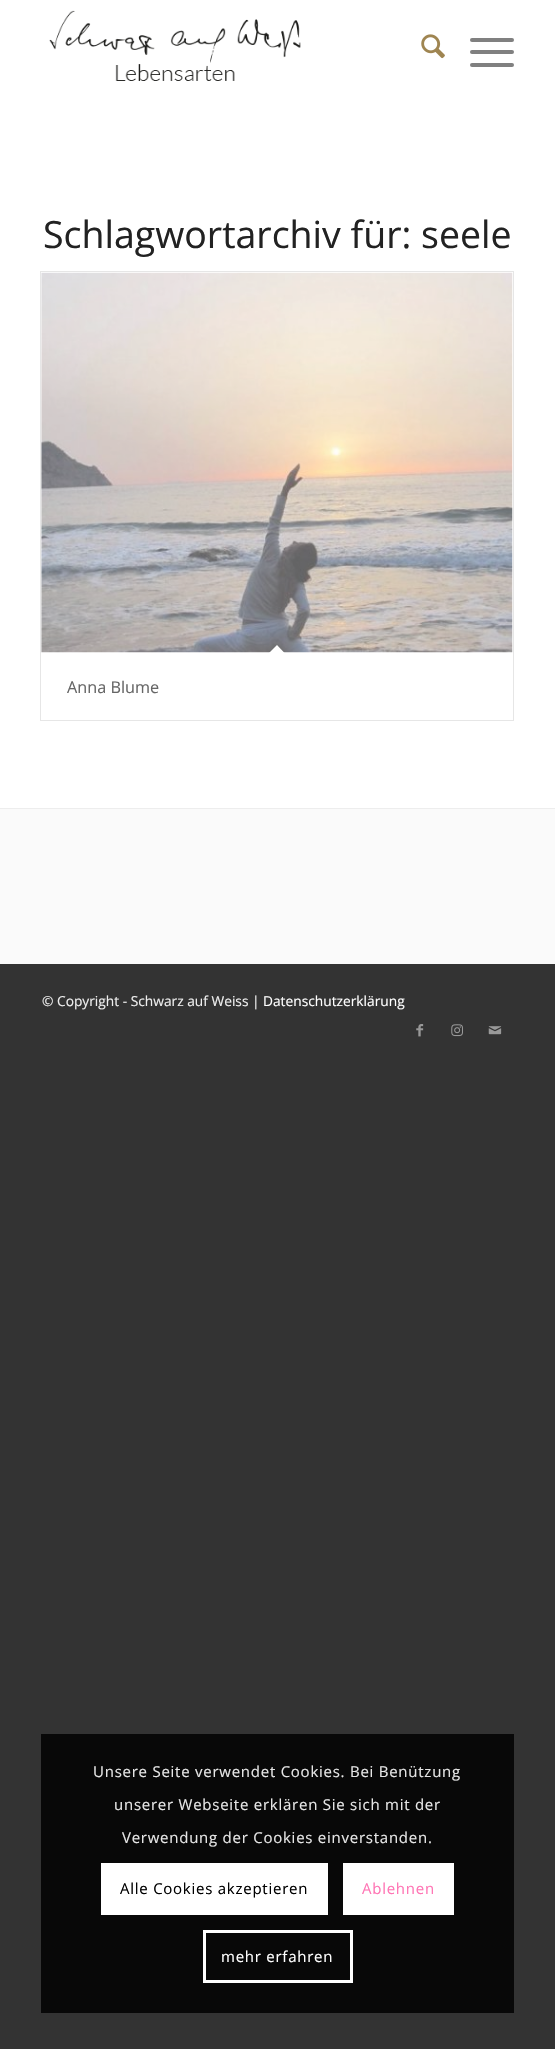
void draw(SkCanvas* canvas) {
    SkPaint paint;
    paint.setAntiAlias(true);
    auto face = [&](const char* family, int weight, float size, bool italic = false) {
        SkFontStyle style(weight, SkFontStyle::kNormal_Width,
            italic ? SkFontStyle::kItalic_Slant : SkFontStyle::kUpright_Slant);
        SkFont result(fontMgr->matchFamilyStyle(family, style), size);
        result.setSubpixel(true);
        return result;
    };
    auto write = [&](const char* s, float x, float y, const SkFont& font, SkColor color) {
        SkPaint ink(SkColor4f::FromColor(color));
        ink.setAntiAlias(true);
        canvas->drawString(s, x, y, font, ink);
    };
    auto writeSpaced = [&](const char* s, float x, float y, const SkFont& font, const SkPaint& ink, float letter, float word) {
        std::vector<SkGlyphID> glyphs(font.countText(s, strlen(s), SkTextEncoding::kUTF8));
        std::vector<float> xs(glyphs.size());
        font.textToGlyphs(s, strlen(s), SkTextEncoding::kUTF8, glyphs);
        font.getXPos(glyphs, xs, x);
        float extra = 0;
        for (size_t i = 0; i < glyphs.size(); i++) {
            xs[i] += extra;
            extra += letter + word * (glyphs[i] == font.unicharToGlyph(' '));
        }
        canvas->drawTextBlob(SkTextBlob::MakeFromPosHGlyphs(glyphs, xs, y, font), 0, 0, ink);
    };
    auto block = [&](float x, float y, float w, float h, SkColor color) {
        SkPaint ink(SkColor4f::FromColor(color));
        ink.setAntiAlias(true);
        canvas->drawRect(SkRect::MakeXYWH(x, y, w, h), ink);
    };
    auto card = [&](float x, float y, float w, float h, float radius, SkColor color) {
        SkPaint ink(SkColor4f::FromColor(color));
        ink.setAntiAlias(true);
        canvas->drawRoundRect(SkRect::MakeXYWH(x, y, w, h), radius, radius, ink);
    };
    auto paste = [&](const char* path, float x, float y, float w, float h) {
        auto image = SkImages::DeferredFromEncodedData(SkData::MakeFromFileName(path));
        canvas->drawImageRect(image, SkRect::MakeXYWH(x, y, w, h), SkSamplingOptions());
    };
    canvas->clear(SkColorSetRGB(51, 51, 51));
    block(0, 0, 555, 808, SK_ColorWHITE);
    paste("pic1.png", 49, 10, 252, 71);
    paste("pic2.png", 421, 34, 24, 25);
    card(470, 50, 44, 4, 2, SkColorSetRGB(128, 128, 128));
    card(470, 38, 44, 4, 2, SkColorSetRGB(128, 128, 128));
    card(470, 63, 44, 4, 2, SkColorSetRGB(128, 128, 128));
    auto kFont1 = face("Open Sans", 400, 37.5f);
    write("Schlagwortarchiv für: seele", 43, 248, kFont1, SkColorSetRGB(34, 34, 34));
    paint.setStyle(SkPaint::kStroke_Style);
    paint.setStrokeWidth(1);
    paint.setColor(SkColorSetRGB(230, 230, 230));
    canvas->drawRect(SkRect::MakeXYWH(40.5f, 271.5f, 473, 449), paint);
    paste("pic3.png", 41, 272, 472, 381);
    paint.setStyle(SkPaint::kFill_Style);
    paint.setColor(SK_ColorWHITE);
    canvas->drawPath(SkPathBuilder().moveTo(277, 645).lineTo(285.5f, 654).lineTo(277, 663).lineTo(268, 654).close().detach(), paint);
    auto kFont2 = face("Open Sans", 400, 16.25f);
    write("Anna Blume", 67, 693, kFont2, SkColorSetRGB(102, 102, 102));
    block(0, 809, 555, 155, SkColorSetRGB(250, 250, 250));
    block(0, 808, 555, 1, SkColorSetRGB(237, 237, 237));
    auto kFont3 = face("Open Sans", 400, 13.75f);
    write("© Copyright - Schwarz auf Weiss |", 42, 1006, kFont3, SkColorSetRGB(238, 238, 238));
    write("Datenschutzerklärung", 263, 1006, kFont3, SK_ColorWHITE);
    paste("pic4.png", 416, 1024, 8, 13);
    paste("pic5.png", 451, 1024, 12, 13);
    paste("pic6.png", 488, 1026, 14, 9);
    block(41, 1734, 473, 279, SkColorSetRGB(8, 8, 8));
    auto kFont4 = face("Open Sans", 400, 15);
    paint.setColor(SkColorSetRGB(230, 230, 230));
    writeSpaced("Unsere Seite verwendet Cookies. Bei Benützung", 93, 1777, kFont4, paint, 0.75f, 0);
    writeSpaced("unserer Webseite erklären Sie sich mit der", 114, 1810, kFont4, paint, 0.75f, 0);
    writeSpaced("Verwendung der Cookies einverstanden.", 122, 1843, kFont4, paint, 0.75f, 0);
    block(101, 1863, 227, 52, SK_ColorWHITE);
    paint.setColor(SK_ColorBLACK);
    writeSpaced("Alle Cookies akzeptieren", 120, 1894, kFont4, paint, 0.75f, 0);
    block(343, 1863, 111, 52, SK_ColorWHITE);
    paint.setColor(SkColorSetRGB(255, 117, 181));
    writeSpaced("Ablehnen", 362, 1894, kFont4, paint, 0.75f, 0);
    paint.setStyle(SkPaint::kStroke_Style);
    paint.setStrokeWidth(3);
    paint.setColor(SK_ColorWHITE);
    canvas->drawRect(SkRect::MakeXYWH(204.5f, 1931.5f, 147, 50), paint);
    paint.setStyle(SkPaint::kFill_Style);
    writeSpaced("mehr erfahren", 221, 1962, kFont4, paint, 0.75f, 0);
}
